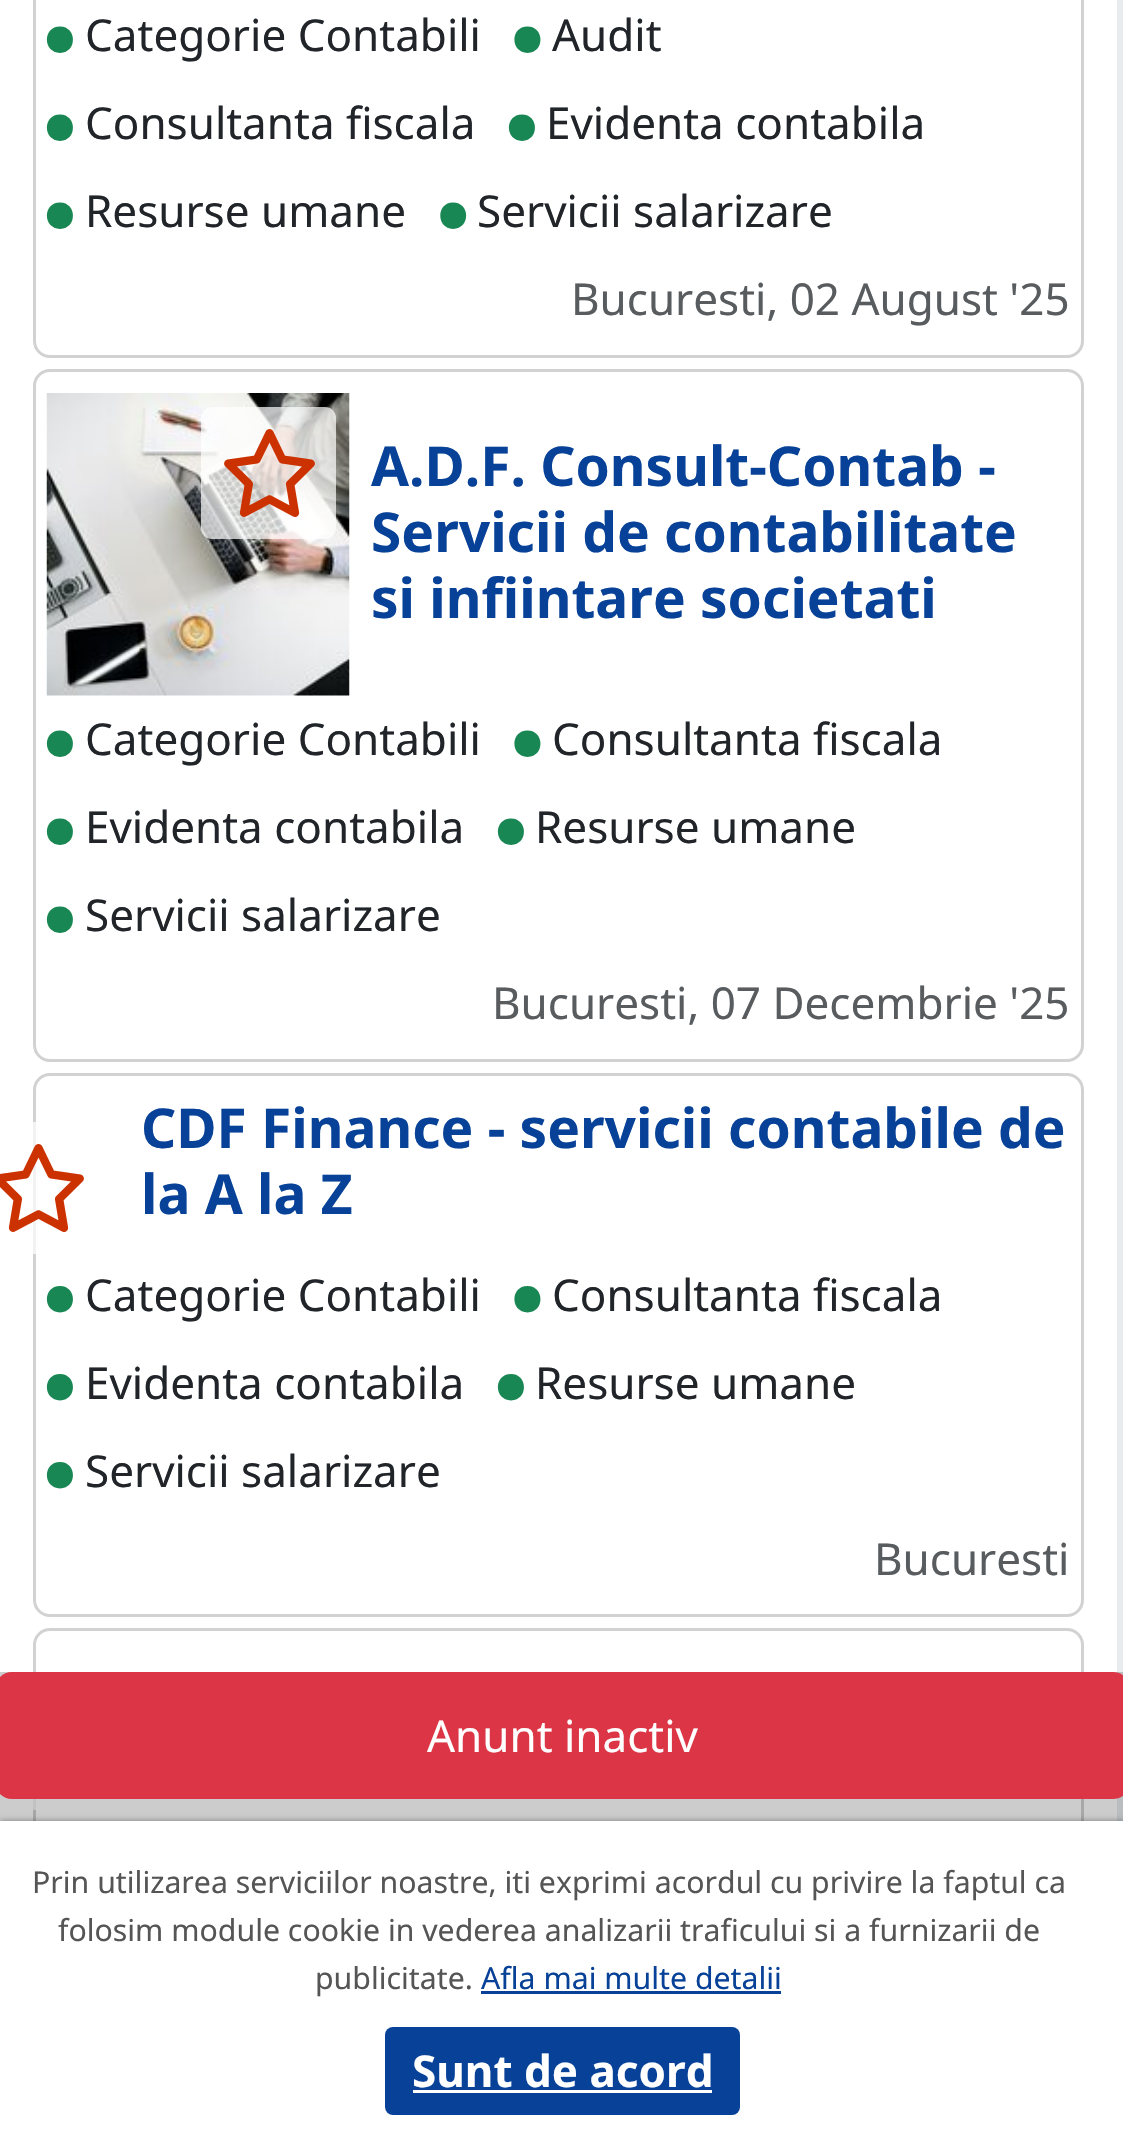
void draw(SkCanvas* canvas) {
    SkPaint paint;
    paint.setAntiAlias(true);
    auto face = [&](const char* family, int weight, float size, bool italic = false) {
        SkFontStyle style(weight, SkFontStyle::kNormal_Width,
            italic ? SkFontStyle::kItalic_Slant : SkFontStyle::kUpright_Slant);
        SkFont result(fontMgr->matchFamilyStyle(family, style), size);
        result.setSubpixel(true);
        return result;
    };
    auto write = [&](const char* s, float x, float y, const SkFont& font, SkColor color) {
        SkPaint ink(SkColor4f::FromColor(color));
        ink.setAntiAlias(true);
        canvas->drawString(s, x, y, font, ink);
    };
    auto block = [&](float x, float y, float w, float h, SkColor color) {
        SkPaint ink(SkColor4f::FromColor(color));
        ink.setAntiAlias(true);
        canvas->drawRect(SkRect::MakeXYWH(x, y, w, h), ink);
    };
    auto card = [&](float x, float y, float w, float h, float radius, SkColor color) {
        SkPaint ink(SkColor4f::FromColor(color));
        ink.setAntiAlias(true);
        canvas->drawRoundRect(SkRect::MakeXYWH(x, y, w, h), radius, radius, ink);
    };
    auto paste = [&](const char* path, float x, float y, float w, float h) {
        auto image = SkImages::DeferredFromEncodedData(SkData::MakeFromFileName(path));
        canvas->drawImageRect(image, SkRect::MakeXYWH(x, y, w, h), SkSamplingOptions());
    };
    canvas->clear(SK_ColorWHITE);
    block(1117, 0, 6, 1821, SkColorSetRGB(233, 236, 239));
    paint.setStyle(SkPaint::kStroke_Style);
    paint.setStrokeWidth(3);
    paint.setColor(SkColorSetRGB(210, 210, 210));
    canvas->drawRoundRect(SkRect::MakeXYWH(34.5f, -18.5f, 1048, 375), 15.5f, 15.5f, paint);
    paint.setStyle(SkPaint::kFill_Style);
    paint.setColor(SkColorSetRGB(25, 135, 84));
    canvas->drawPath(SkPathBuilder().moveTo(60, 53).cubicTo(77.5f, 52.5f, 77, 26.5f, 60, 26.5f).cubicTo(42.5f, 26.5f, 42.5f, 52.5f, 60, 53).close().detach(), paint);
    auto kFont1 = face("Noto Sans", 400, 44);
    write("Categorie Contabili", 85, 51, kFont1, SkColorSetRGB(33, 37, 41));
    canvas->drawPath(SkPathBuilder().moveTo(527.5f, 53).cubicTo(545, 52.5f, 544.5f, 26.5f, 527.5f, 26.5f).cubicTo(510, 26.5f, 510, 52.5f, 527.5f, 53).close().detach(), paint);
    write("Audit", 552, 51, kFont1, SkColorSetRGB(33, 37, 41));
    canvas->drawPath(SkPathBuilder().moveTo(60, 141).cubicTo(77.5f, 140.5f, 77, 114.5f, 60, 114.5f).cubicTo(42.5f, 114.5f, 42.5f, 140.5f, 60, 141).close().detach(), paint);
    write("Consultanta fiscala", 85, 139, kFont1, SkColorSetRGB(33, 37, 41));
    canvas->drawPath(SkPathBuilder().moveTo(522, 141).cubicTo(539.5f, 140.5f, 539, 114.5f, 522, 114.5f).cubicTo(504.5f, 114.5f, 504.5f, 140.5f, 522, 141).close().detach(), paint);
    write("Evidenta contabila", 546, 139, kFont1, SkColorSetRGB(33, 37, 41));
    canvas->drawPath(SkPathBuilder().moveTo(60, 229).cubicTo(77.5f, 228.5f, 77, 202.5f, 60, 202.5f).cubicTo(42.5f, 202.5f, 42.5f, 228.5f, 60, 229).close().detach(), paint);
    write("Resurse umane", 85, 227, kFont1, SkColorSetRGB(33, 37, 41));
    canvas->drawPath(SkPathBuilder().moveTo(453, 229).cubicTo(470.5f, 228.5f, 470.5f, 202.5f, 453, 202.5f).cubicTo(436, 202.5f, 436, 228.5f, 453, 229).close().detach(), paint);
    write("Servicii salarizare", 477, 227, kFont1, SkColorSetRGB(33, 37, 41));
    write("Bucuresti, 02 August '25", 571, 315, kFont1, SkColorSetRGB(89, 92, 95));
    paint.setStyle(SkPaint::kStroke_Style);
    paint.setColor(SkColorSetRGB(210, 210, 210));
    canvas->drawRoundRect(SkRect::MakeXYWH(34.5f, 370.5f, 1048, 690), 15.5f, 15.5f, paint);
    paste("pic1.png", 46, 393, 304, 303);
    card(201, 407, 135, 132, 11, SkColorSetARGB(179, 255, 255, 255));
    paste("pic2.png", 224, 429, 91, 88);
    auto kFont2 = face("Noto Sans", 700, 55);
    write("A.D.F. Consult-Contab -", 371, 486, kFont2, SkColorSetRGB(8, 66, 152));
    write("Servicii de contabilitate", 371, 552, kFont2, SkColorSetRGB(8, 66, 152));
    write("si infiintare societati", 371, 618, kFont2, SkColorSetRGB(8, 66, 152));
    paint.setStyle(SkPaint::kFill_Style);
    paint.setColor(SkColorSetRGB(25, 135, 84));
    canvas->drawPath(SkPathBuilder().moveTo(60, 757).cubicTo(77.5f, 756.5f, 77, 730.5f, 60, 730.5f).cubicTo(42.5f, 730.5f, 42.5f, 756.5f, 60, 757).close().detach(), paint);
    write("Categorie Contabili", 85, 755, kFont1, SkColorSetRGB(33, 37, 41));
    canvas->drawPath(SkPathBuilder().moveTo(527.5f, 757).cubicTo(545, 756.5f, 544.5f, 730.5f, 527.5f, 730.5f).cubicTo(510, 730.5f, 510, 756.5f, 527.5f, 757).close().detach(), paint);
    write("Consultanta fiscala", 552, 755, kFont1, SkColorSetRGB(33, 37, 41));
    canvas->drawPath(SkPathBuilder().moveTo(60, 845).cubicTo(77.5f, 844.5f, 77, 818.5f, 60, 818.5f).cubicTo(42.5f, 818.5f, 42.5f, 844.5f, 60, 845).close().detach(), paint);
    write("Evidenta contabila", 85, 843, kFont1, SkColorSetRGB(33, 37, 41));
    canvas->drawPath(SkPathBuilder().moveTo(511, 845).cubicTo(528.5f, 844.5f, 528, 818.5f, 511, 818.5f).cubicTo(493.5f, 818.5f, 493.5f, 844.5f, 511, 845).close().detach(), paint);
    write("Resurse umane", 535, 843, kFont1, SkColorSetRGB(33, 37, 41));
    canvas->drawPath(SkPathBuilder().moveTo(60, 933).cubicTo(77.5f, 932.5f, 77, 906.5f, 60, 906.5f).cubicTo(42.5f, 906.5f, 42.5f, 932.5f, 60, 933).close().detach(), paint);
    write("Servicii salarizare", 85, 931, kFont1, SkColorSetRGB(33, 37, 41));
    write("Bucuresti, 07 Decembrie '25", 492, 1019, kFont1, SkColorSetRGB(89, 92, 95));
    paint.setStyle(SkPaint::kStroke_Style);
    paint.setColor(SkColorSetRGB(210, 210, 210));
    canvas->drawRoundRect(SkRect::MakeXYWH(34.5f, 1074.5f, 1048, 541), 15.5f, 15.5f, paint);
    card(-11, 1122, 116, 132, 11, SkColorSetARGB(179, 255, 255, 255));
    paste("pic3.png", 0, 1144, 84, 88);
    write("CDF Finance - servicii contabile de", 141, 1148, kFont2, SkColorSetRGB(8, 66, 152));
    write("la A la Z", 141, 1214, kFont2, SkColorSetRGB(8, 66, 152));
    paint.setStyle(SkPaint::kFill_Style);
    paint.setColor(SkColorSetRGB(25, 135, 84));
    canvas->drawPath(SkPathBuilder().moveTo(60, 1312.5f).cubicTo(77.5f, 1312, 77, 1286, 60, 1286).cubicTo(42.5f, 1286, 42.5f, 1312, 60, 1312.5f).close().detach(), paint);
    write("Categorie Contabili", 85, 1311, kFont1, SkColorSetRGB(33, 37, 41));
    canvas->drawPath(SkPathBuilder().moveTo(527.5f, 1312.5f).cubicTo(545, 1312, 544.5f, 1286, 527.5f, 1286).cubicTo(510, 1286, 510, 1312, 527.5f, 1312.5f).close().detach(), paint);
    write("Consultanta fiscala", 552, 1311, kFont1, SkColorSetRGB(33, 37, 41));
    canvas->drawPath(SkPathBuilder().moveTo(60, 1400.5f).cubicTo(77.5f, 1400, 77, 1374, 60, 1374).cubicTo(42.5f, 1374, 42.5f, 1400, 60, 1400.5f).close().detach(), paint);
    write("Evidenta contabila", 85, 1399, kFont1, SkColorSetRGB(33, 37, 41));
    canvas->drawPath(SkPathBuilder().moveTo(511, 1400.5f).cubicTo(528.5f, 1400, 528, 1374, 511, 1374).cubicTo(493.5f, 1374, 493.5f, 1400, 511, 1400.5f).close().detach(), paint);
    write("Resurse umane", 535, 1399, kFont1, SkColorSetRGB(33, 37, 41));
    canvas->drawPath(SkPathBuilder().moveTo(60, 1488.5f).cubicTo(77.5f, 1488, 77, 1462, 60, 1462).cubicTo(42.5f, 1462, 42.5f, 1488, 60, 1488.5f).close().detach(), paint);
    write("Servicii salarizare", 85, 1487, kFont1, SkColorSetRGB(33, 37, 41));
    write("Bucuresti", 874, 1575, kFont1, SkColorSetRGB(89, 92, 95));
    paint.setStyle(SkPaint::kStroke_Style);
    paint.setColor(SkColorSetRGB(210, 210, 210));
    canvas->drawRoundRect(SkRect::MakeXYWH(34.5f, 1629.5f, 1048, 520), 15.5f, 15.5f, paint);
    card(-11, 1678, 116, 132, 11, SkColorSetARGB(179, 255, 255, 255));
    block(0, 1672, 1123, 149, SkColorSetARGB(51, 0, 0, 0));
    paint.setStyle(SkPaint::kFill_Style);
    paint.setColor(SkColorSetRGB(220, 53, 69));
    canvas->drawRoundRect(SkRect::MakeXYWH(-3.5f, 1673.5f, 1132, 124), 15.5f, 15.5f, paint);
    paint.setStyle(SkPaint::kStroke_Style);
    canvas->drawRoundRect(SkRect::MakeXYWH(-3.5f, 1673.5f, 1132, 124), 15.5f, 15.5f, paint);
    write("Anunt inactiv", 427, 1752, kFont1, SK_ColorWHITE);
    paint.setStyle(SkPaint::kFill_Style);
    paint.setColor(SkColorSetARGB(102, 0, 0, 0));
    paint.setMaskFilter(SkMaskFilter::MakeBlur(kNormal_SkBlurStyle, 3));
    canvas->drawRect(SkRect::MakeXYWH(0, 1821, 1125, 299), paint);
    paint.setMaskFilter(nullptr);
    block(0, 1821, 1123, 310, SK_ColorWHITE);
    auto kFont3 = face("Noto Sans", 400, 30.25f);
    write("Prin utilizarea serviciilor noastre, iti exprimi acordul cu privire la faptul ca", 32, 1893, kFont3, SkColorSetRGB(85, 85, 85));
    write("folosim module cookie in vederea analizarii traficului si a furnizarii de", 58, 1941, kFont3, SkColorSetRGB(85, 85, 85));
    write("publicitate.", 315, 1989, kFont3, SkColorSetRGB(85, 85, 85));
    write("Afla mai multe detalii", 481, 1989, kFont3, SkColorSetRGB(8, 66, 152));
    block(481, 1991, 300, 3, SkColorSetRGB(8, 66, 152));
    card(385, 2027, 355, 88, 8, SkColorSetRGB(8, 66, 152));
    auto kFont4 = face("Noto Sans", 700, 44);
    write("Sunt de acord", 412, 2087, kFont4, SK_ColorWHITE);
    block(413, 2090, 299, 3, SK_ColorWHITE);
}
